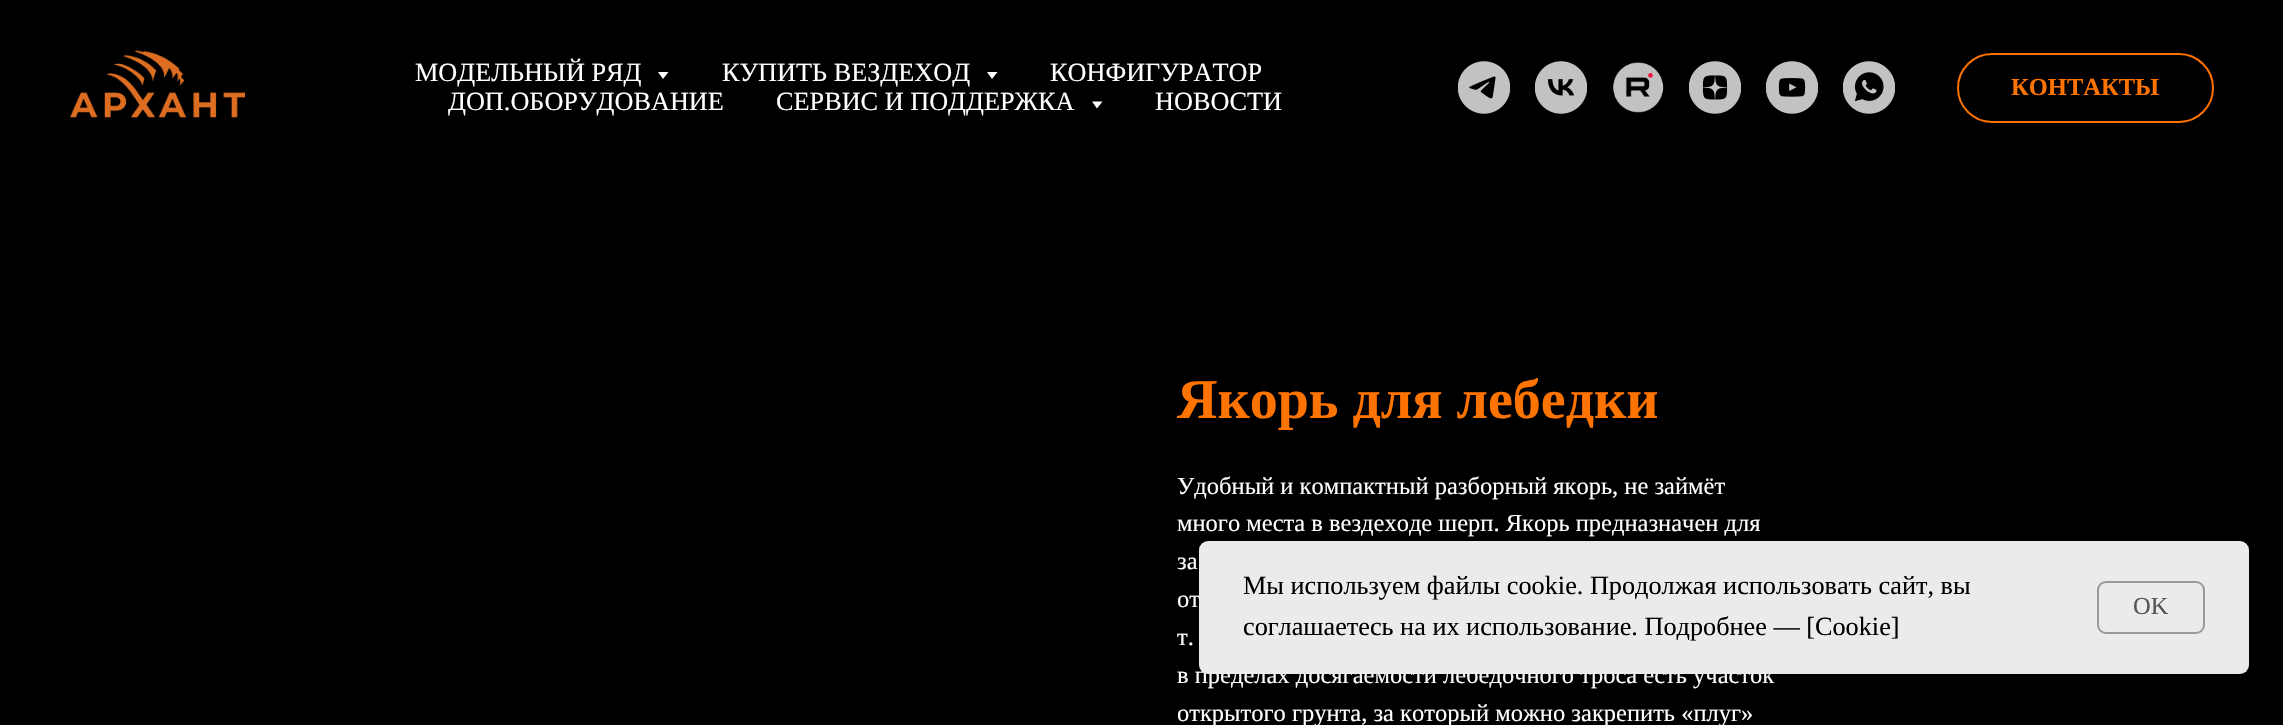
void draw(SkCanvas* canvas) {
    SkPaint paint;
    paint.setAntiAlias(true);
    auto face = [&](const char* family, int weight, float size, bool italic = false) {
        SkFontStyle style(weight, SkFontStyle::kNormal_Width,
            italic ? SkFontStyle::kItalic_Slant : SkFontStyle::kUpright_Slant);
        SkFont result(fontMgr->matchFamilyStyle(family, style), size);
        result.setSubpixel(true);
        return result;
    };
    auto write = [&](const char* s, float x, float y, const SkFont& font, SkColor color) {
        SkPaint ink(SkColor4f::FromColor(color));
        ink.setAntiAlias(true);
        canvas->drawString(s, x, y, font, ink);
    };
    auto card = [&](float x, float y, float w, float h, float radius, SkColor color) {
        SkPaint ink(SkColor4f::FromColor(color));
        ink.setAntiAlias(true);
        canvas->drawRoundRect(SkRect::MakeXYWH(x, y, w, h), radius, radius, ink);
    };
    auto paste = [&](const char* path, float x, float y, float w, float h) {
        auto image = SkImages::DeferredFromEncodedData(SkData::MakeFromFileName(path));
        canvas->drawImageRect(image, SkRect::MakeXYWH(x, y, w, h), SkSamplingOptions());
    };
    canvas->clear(SK_ColorBLACK);
    paste("pic1.png", 70, 50, 175, 68);
    auto kFont1 = face("Liberation Serif", 400, 26.25f);
    write("МОДЕЛЬНЫЙ РЯД", 415, 81, kFont1, SK_ColorWHITE);
    paint.setColor(SK_ColorWHITE);
    canvas->drawPath(SkPathBuilder().moveTo(658, 72).lineTo(668.5f, 72).lineTo(663, 79).close().detach(), paint);
    write("КУПИТЬ ВЕЗДЕХОД", 722, 81, kFont1, SK_ColorWHITE);
    canvas->drawPath(SkPathBuilder().moveTo(987, 72).lineTo(997.5f, 72).lineTo(992, 79).close().detach(), paint);
    write("КОНФИГУРАТОР", 1050, 81, kFont1, SK_ColorWHITE);
    write("ДОП.ОБОРУДОВАНИЕ", 448, 110, kFont1, SK_ColorWHITE);
    write("СЕРВИС И ПОДДЕРЖКА", 776, 110, kFont1, SK_ColorWHITE);
    canvas->drawPath(SkPathBuilder().moveTo(1092, 101.5f).lineTo(1102.5f, 101.5f).lineTo(1097, 108.5f).close().detach(), paint);
    write("НОВОСТИ", 1155, 110, kFont1, SK_ColorWHITE);
    paste("pic2.png", 1458, 61, 52, 53);
    paste("pic3.png", 1535, 61, 52, 53);
    paste("pic4.png", 1613, 62, 51, 51);
    paste("pic5.png", 1689, 61, 52, 53);
    paste("pic6.png", 1766, 61, 52, 53);
    paste("pic7.png", 1843, 61, 52, 53);
    paint.setStyle(SkPaint::kStroke_Style);
    paint.setStrokeWidth(2);
    paint.setColor(SkColorSetRGB(255, 115, 0));
    canvas->drawRoundRect(SkRect::MakeXYWH(1958, 54, 255, 68), 34, 34, paint);
    auto kFont2 = face("Liberation Serif", 700, 24.5f);
    write("КОНТАКТЫ", 2011, 95, kFont2, SkColorSetRGB(255, 115, 0));
    auto kFont3 = face("Liberation Serif", 700, 56);
    write("Якорь для лебедки", 1177, 418, kFont3, SkColorSetRGB(255, 115, 0));
    auto kFont4 = face("Liberation Serif", 400, 24.5f);
    write("Удобный и компактный разборный якорь, не займёт", 1177, 494, kFont4, SK_ColorWHITE);
    write("много места в вездеходе шерп. Якорь предназначен для", 1177, 531, kFont4, SK_ColorWHITE);
    write("за", 1177, 569, kFont4, SK_ColorWHITE);
    write("от", 1177, 607, kFont4, SK_ColorWHITE);
    write("т.", 1177, 645, kFont4, SK_ColorWHITE);
    write("в пределах досягаемости лебёдочного троса есть участок", 1177, 683, kFont4, SK_ColorWHITE);
    write("открытого грунта, за который можно закрепить «плуг»", 1177, 721, kFont4, SK_ColorWHITE);
    paint.setStyle(SkPaint::kFill_Style);
    paint.setColor(SkColorSetARGB(26, 0, 0, 0));
    paint.setMaskFilter(SkMaskFilter::MakeBlur(kNormal_SkBlurStyle, 4.5f));
    canvas->drawRoundRect(SkRect::MakeXYWH(1199, 541, 1050, 133), 9, 9, paint);
    paint.setMaskFilter(nullptr);
    card(1199, 541, 1050, 133, 9, SkColorSetRGB(235, 235, 235));
    write("Мы используем файлы cookie. Продолжая использовать сайт, вы", 1243, 594, kFont1, SK_ColorBLACK);
    write("соглашаетесь на их использование. Подробнее — [Cookie]", 1243, 635, kFont1, SK_ColorBLACK);
    paint.setStyle(SkPaint::kStroke_Style);
    paint.setColor(SkColorSetRGB(153, 153, 153));
    canvas->drawRoundRect(SkRect::MakeXYWH(2098, 582, 106, 51), 8, 8, paint);
    write("OK", 2133, 614, kFont4, SkColorSetRGB(85, 85, 85));
}
